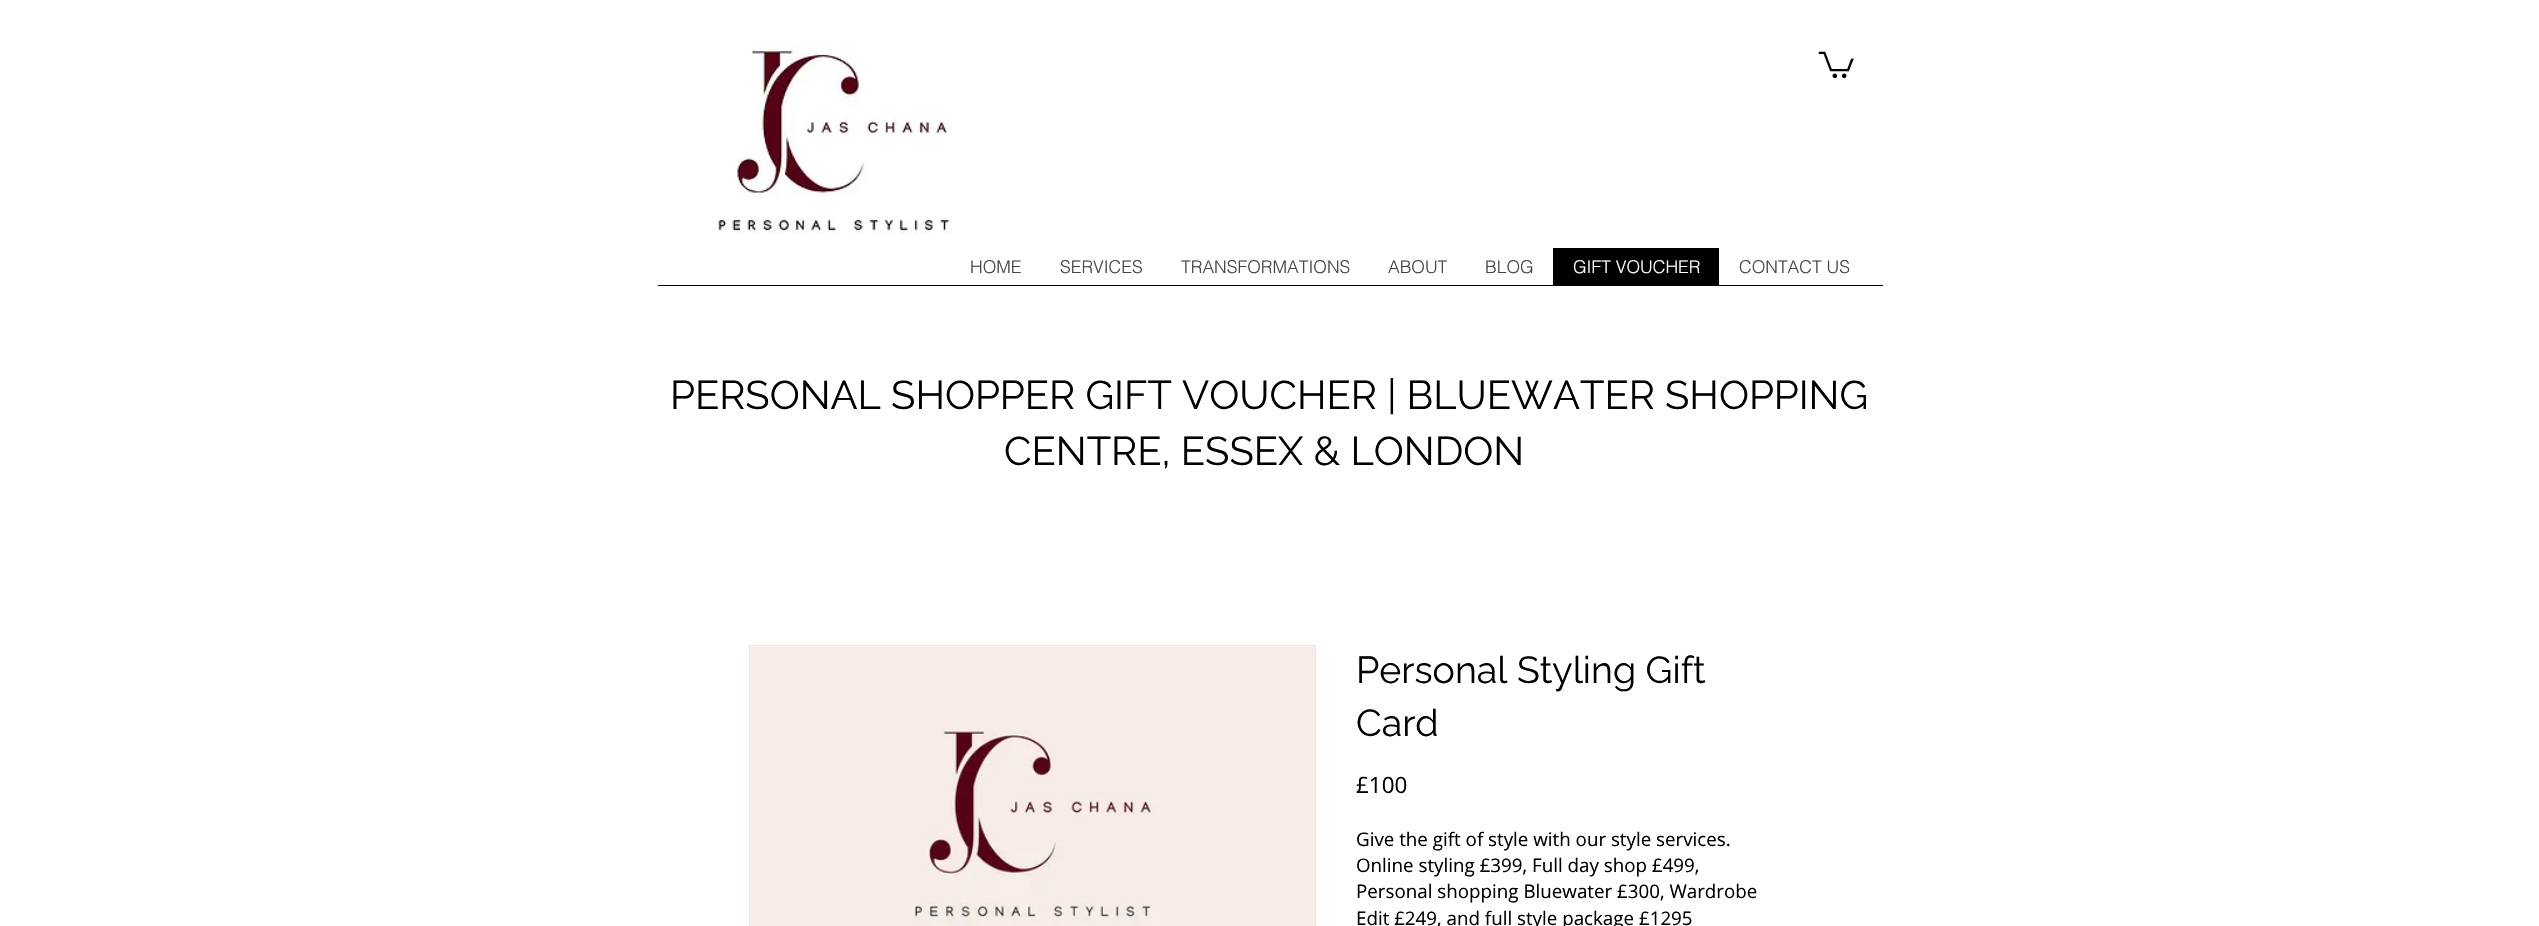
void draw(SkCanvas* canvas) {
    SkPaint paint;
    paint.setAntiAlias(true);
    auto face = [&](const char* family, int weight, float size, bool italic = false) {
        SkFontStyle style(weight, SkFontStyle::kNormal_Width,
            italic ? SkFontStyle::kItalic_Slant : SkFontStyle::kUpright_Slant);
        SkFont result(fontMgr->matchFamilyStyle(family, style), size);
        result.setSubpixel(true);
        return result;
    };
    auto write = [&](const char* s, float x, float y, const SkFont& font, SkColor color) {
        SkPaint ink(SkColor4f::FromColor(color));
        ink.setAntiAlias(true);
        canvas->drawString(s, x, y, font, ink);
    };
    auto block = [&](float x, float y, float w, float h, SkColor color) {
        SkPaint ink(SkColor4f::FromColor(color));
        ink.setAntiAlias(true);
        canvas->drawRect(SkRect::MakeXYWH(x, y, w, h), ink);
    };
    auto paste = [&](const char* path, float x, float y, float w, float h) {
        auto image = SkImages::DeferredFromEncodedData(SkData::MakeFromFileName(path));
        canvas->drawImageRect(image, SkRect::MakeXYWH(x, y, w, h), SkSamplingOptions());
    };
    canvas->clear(SK_ColorWHITE);
    paste("pic1.png", 718, 43, 234, 191);
    paste("pic2.png", 1818, 51, 36, 28);
    auto kFont1 = face("helvetica", 300, 17.5f);
    write("HOME", 970, 273, kFont1, SkColorSetRGB(68, 68, 68));
    write("SERVICES", 1060, 273, kFont1, SkColorSetRGB(68, 68, 68));
    write("TRANSFORMATIONS", 1181, 273, kFont1, SkColorSetRGB(68, 68, 68));
    write("ABOUT", 1388, 273, kFont1, SkColorSetRGB(68, 68, 68));
    write("BLOG", 1485, 273, kFont1, SkColorSetRGB(68, 68, 68));
    block(1553, 248, 166, 37, SK_ColorBLACK);
    write("GIFT VOUCHER", 1573, 273, kFont1, SK_ColorWHITE);
    write("CONTACT US", 1739, 273, kFont1, SkColorSetRGB(68, 68, 68));
    block(658, 285, 1225, 1, SK_ColorBLACK);
    auto kFont2 = face("Raleway", 400, 40);
    write("PERSONAL SHOPPER GIFT VOUCHER | BLUEWATER SHOPPING", 670, 409, kFont2, SK_ColorBLACK);
    write("CENTRE, ESSEX & LONDON", 1004, 465, kFont2, SK_ColorBLACK);
    paint.setStyle(SkPaint::kStroke_Style);
    paint.setStrokeWidth(1);
    paint.setColor(SkColorSetRGB(232, 230, 230));
    canvas->drawRect(SkRect::MakeXYWH(749.5f, 645.5f, 566, 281), paint);
    paste("pic3.png", 750, 646, 565, 280);
    auto kFont3 = face("Raleway", 400, 37.5f);
    write("Personal Styling Gift", 1356, 683, kFont3, SK_ColorBLACK);
    write("Card", 1356, 736, kFont3, SK_ColorBLACK);
    auto kFont4 = face("Open Sans", 400, 22.5f);
    write("£100", 1356, 793, kFont4, SK_ColorBLACK);
    auto kFont5 = face("Open Sans", 400, 18.75f);
    write("Give the gift of style with our style services.", 1356, 846, kFont5, SK_ColorBLACK);
    write("Online styling £399, Full day shop £499,", 1356, 872, kFont5, SK_ColorBLACK);
    write("Personal shopping Bluewater £300, Wardrobe", 1356, 898, kFont5, SK_ColorBLACK);
    write("Edit £249, and full style package £1295", 1356, 925, kFont5, SK_ColorBLACK);
}
